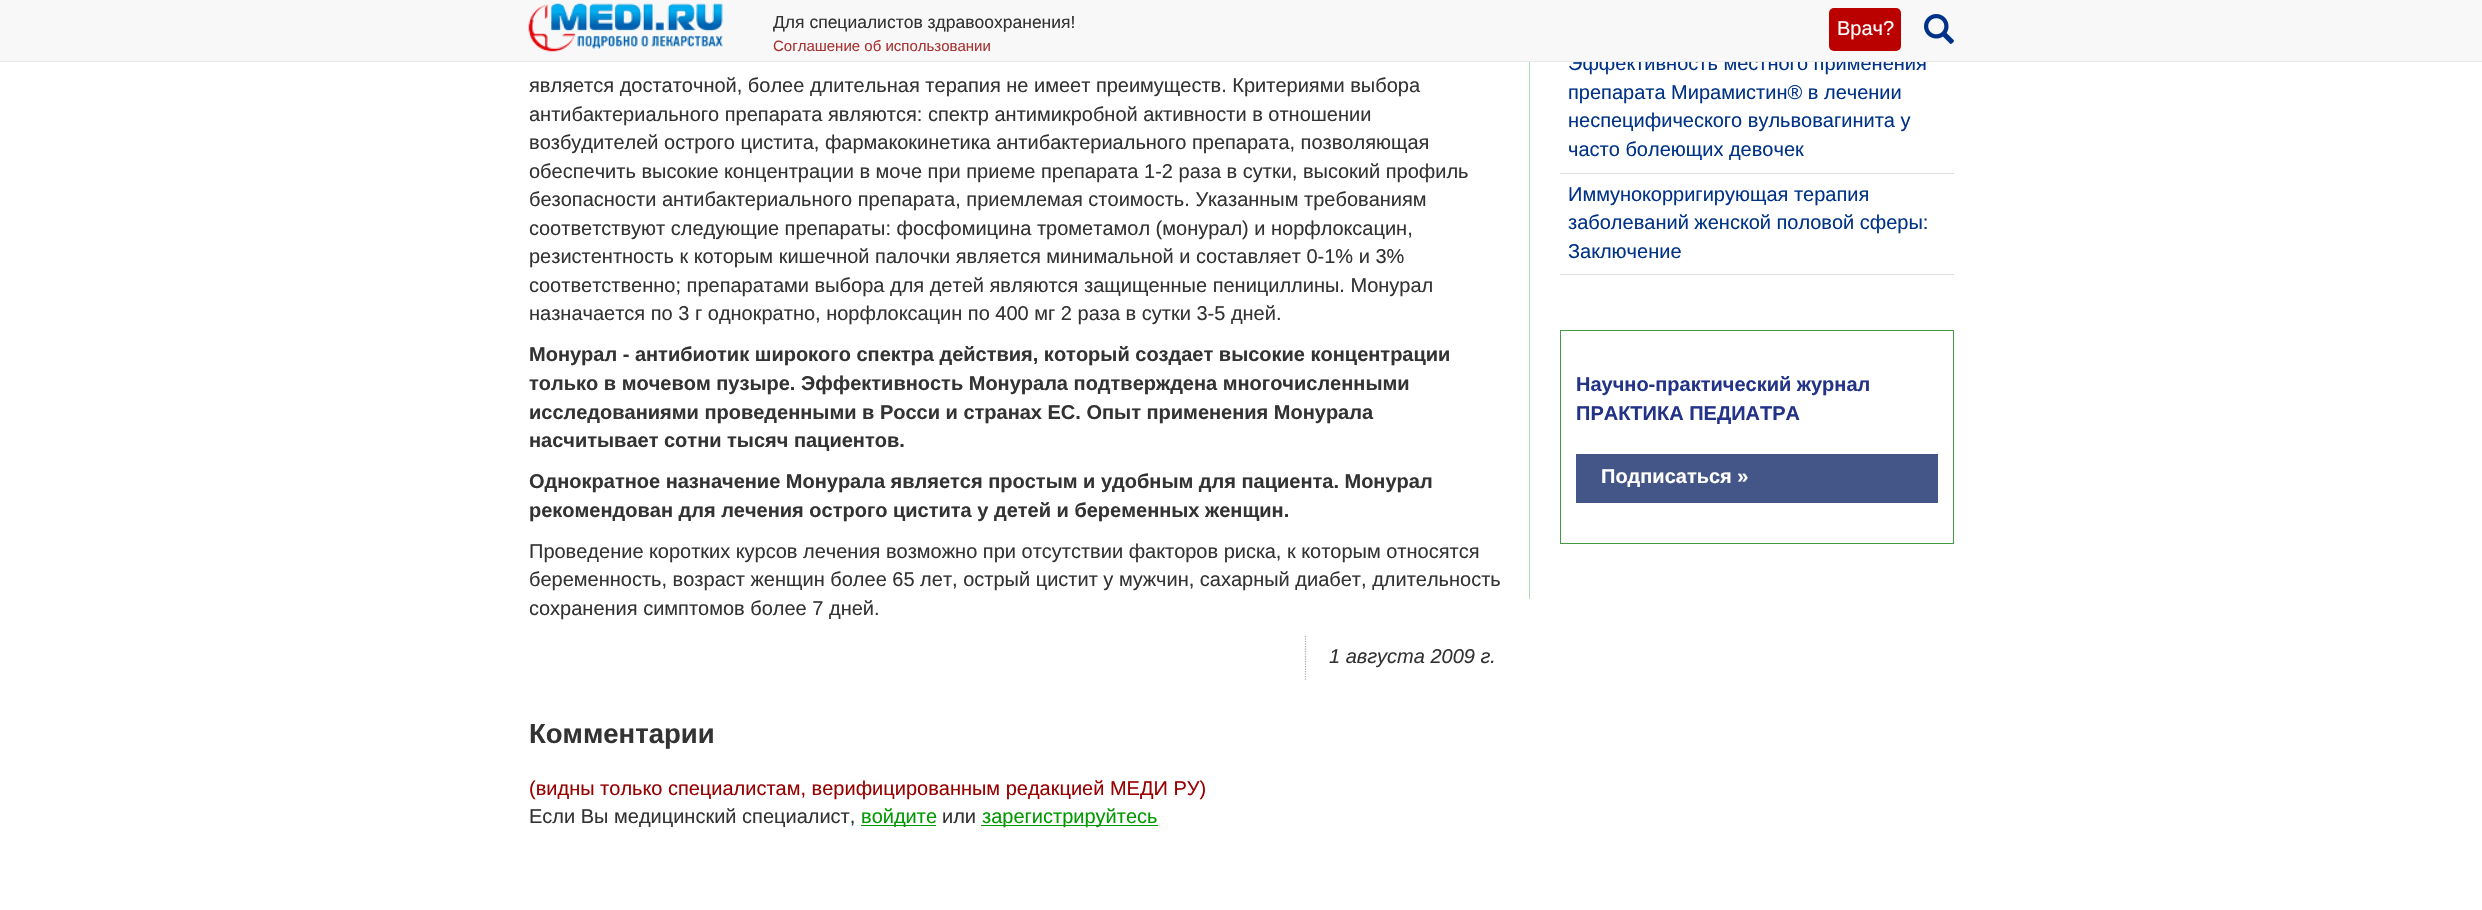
void draw(SkCanvas* canvas) {
    SkPaint paint;
    paint.setAntiAlias(true);
    auto face = [&](const char* family, int weight, float size, bool italic = false) {
        SkFontStyle style(weight, SkFontStyle::kNormal_Width,
            italic ? SkFontStyle::kItalic_Slant : SkFontStyle::kUpright_Slant);
        SkFont result(fontMgr->matchFamilyStyle(family, style), size);
        result.setSubpixel(true);
        return result;
    };
    auto write = [&](const char* s, float x, float y, const SkFont& font, SkColor color) {
        SkPaint ink(SkColor4f::FromColor(color));
        ink.setAntiAlias(true);
        canvas->drawString(s, x, y, font, ink);
    };
    auto block = [&](float x, float y, float w, float h, SkColor color) {
        SkPaint ink(SkColor4f::FromColor(color));
        ink.setAntiAlias(true);
        canvas->drawRect(SkRect::MakeXYWH(x, y, w, h), ink);
    };
    auto card = [&](float x, float y, float w, float h, float radius, SkColor color) {
        SkPaint ink(SkColor4f::FromColor(color));
        ink.setAntiAlias(true);
        canvas->drawRoundRect(SkRect::MakeXYWH(x, y, w, h), radius, radius, ink);
    };
    auto paste = [&](const char* path, float x, float y, float w, float h) {
        auto image = SkImages::DeferredFromEncodedData(SkData::MakeFromFileName(path));
        canvas->drawImageRect(image, SkRect::MakeXYWH(x, y, w, h), SkSamplingOptions());
    };
    canvas->clear(SK_ColorWHITE);
    auto kFont1 = face("Liberation Sans", 400, 20);
    write("Эффективность местного применения", 1568, 70, kFont1, SkColorSetRGB(0, 51, 136));
    block(0, 0, 2482, 61, SkColorSetRGB(248, 248, 248));
    block(0, 61, 2482, 1, SkColorSetRGB(231, 231, 231));
    paste("pic1.png", 528, 3, 195, 49);
    auto kFont2 = face("Liberation Sans", 400, 17.5f);
    write("Для специалистов здравоохранения!", 773, 28, kFont2, SkColorSetRGB(51, 51, 51));
    auto kFont3 = face("Liberation Sans", 400, 15);
    write("Соглашение об использовании", 773, 51, kFont3, SkColorSetRGB(170, 51, 51));
    card(1829, 8, 72, 43, 5, SkColorSetRGB(187, 0, 0));
    write("Врач?", 1837, 35, kFont1, SK_ColorWHITE);
    paste("pic2.png", 1924, 14, 30, 30);
    write("является достаточной, более длительная терапия не имеет преимуществ. Критериями выбора", 529, 92, kFont1, SkColorSetRGB(51, 51, 51));
    write("антибактериального препарата являются: спектр антимикробной активности в отношении", 529, 121, kFont1, SkColorSetRGB(51, 51, 51));
    write("возбудителей острого цистита, фармакокинетика антибактериального препарата, позволяющая", 529, 149, kFont1, SkColorSetRGB(51, 51, 51));
    write("обеспечить высокие концентрации в моче при приеме препарата 1-2 раза в сутки, высокий профиль", 529, 178, kFont1, SkColorSetRGB(51, 51, 51));
    write("безопасности антибактериального препарата, приемлемая стоимость. Указанным требованиям", 529, 206, kFont1, SkColorSetRGB(51, 51, 51));
    write("соответствуют следующие препараты: фосфомицина трометамол (монурал) и норфлоксацин,", 529, 235, kFont1, SkColorSetRGB(51, 51, 51));
    write("резистентность к которым кишечной палочки является минимальной и составляет 0-1% и 3%", 529, 263, kFont1, SkColorSetRGB(51, 51, 51));
    write("соответственно; препаратами выбора для детей являются защищенные пенициллины. Монурал", 529, 292, kFont1, SkColorSetRGB(51, 51, 51));
    write("назначается по 3 г однократно, норфлоксацин по 400 мг 2 раза в сутки 3-5 дней.", 529, 320, kFont1, SkColorSetRGB(51, 51, 51));
    auto kFont4 = face("Liberation Sans", 700, 20);
    write("Монурал - антибиотик широкого спектра действия, который создает высокие концентрации", 529, 361, kFont4, SkColorSetRGB(51, 51, 51));
    write("только в мочевом пузыре. Эффективность Монурала подтверждена многочисленными", 529, 390, kFont4, SkColorSetRGB(51, 51, 51));
    write("исследованиями проведенными в Росси и странах ЕС. Опыт применения Монурала", 529, 419, kFont4, SkColorSetRGB(51, 51, 51));
    write("насчитывает сотни тысяч пациентов.", 529, 447, kFont4, SkColorSetRGB(51, 51, 51));
    write("Однократное назначение Монурала является простым и удобным для пациента. Монурал", 529, 488, kFont4, SkColorSetRGB(51, 51, 51));
    write("рекомендован для лечения острого цистита у детей и беременных женщин.", 529, 517, kFont4, SkColorSetRGB(51, 51, 51));
    write("Проведение коротких курсов лечения возможно при отсутствии факторов риска, к которым относятся", 529, 558, kFont1, SkColorSetRGB(51, 51, 51));
    write("беременность, возраст женщин более 65 лет, острый цистит у мужчин, сахарный диабет, длительность", 529, 586, kFont1, SkColorSetRGB(51, 51, 51));
    write("сохранения симптомов более 7 дней.", 529, 615, kFont1, SkColorSetRGB(51, 51, 51));
    paint.setStyle(SkPaint::kStroke_Style);
    paint.setStrokeWidth(1.2f);
    paint.setColor(SkColorSetRGB(170, 170, 170));
    paint.setPathEffect(SkDashPathEffect::Make({{1.25f, 1.25f}}, 0));
    canvas->drawPath(SkPathBuilder().moveTo(1305.5f, 636).lineTo(1305.5f, 680).detach(), paint);
    paint.setPathEffect(nullptr);
    auto kFont5 = face("Liberation Sans", 400, 20, true);
    write("1 августа 2009 г.", 1329, 663, kFont5, SkColorSetRGB(51, 51, 51));
    auto kFont6 = face("Liberation Sans", 700, 27.5f);
    write("Комментарии", 529, 743, kFont6, SkColorSetRGB(51, 51, 51));
    write("(видны только специалистам, верифицированным редакцией МЕДИ РУ)", 529, 795, kFont1, SkColorSetRGB(153, 0, 0));
    write("Если Вы медицинский специалист,", 529, 823, kFont1, SkColorSetRGB(51, 51, 51));
    block(861, 825, 75, 1, SkColorSetRGB(0, 153, 0));
    write("войдите", 861, 823, kFont1, SkColorSetRGB(0, 153, 0));
    write("или", 942, 823, kFont1, SkColorSetRGB(51, 51, 51));
    block(981, 825, 177, 1, SkColorSetRGB(0, 153, 0));
    write("зарегистрируйтесь", 982, 823, kFont1, SkColorSetRGB(0, 153, 0));
    block(1529, 62, 1, 537, SkColorSetRGB(170, 221, 187));
    block(1560, 173, 394, 1, SkColorSetRGB(221, 221, 221));
    write("препарата Мирамистин® в лечении", 1568, 99, kFont1, SkColorSetRGB(0, 51, 136));
    write("неспецифического вульвовагинита у", 1568, 127, kFont1, SkColorSetRGB(0, 51, 136));
    write("часто болеющих девочек", 1568, 156, kFont1, SkColorSetRGB(0, 51, 136));
    block(1560, 274, 394, 1, SkColorSetRGB(221, 221, 221));
    write("Иммунокорригирующая терапия", 1568, 201, kFont1, SkColorSetRGB(0, 51, 136));
    write("заболеваний женской половой сферы:", 1568, 229, kFont1, SkColorSetRGB(0, 51, 136));
    write("Заключение", 1568, 258, kFont1, SkColorSetRGB(0, 51, 136));
    paint.setStrokeWidth(1);
    paint.setColor(SkColorSetRGB(68, 153, 68));
    canvas->drawRect(SkRect::MakeXYWH(1560.5f, 330.5f, 393, 213), paint);
    write("Научно-практический журнал", 1576, 391, kFont4, SkColorSetRGB(34, 51, 136));
    write("ПРАКТИКА ПЕДИАТРА", 1576, 420, kFont4, SkColorSetRGB(34, 51, 136));
    block(1576, 454, 362, 49, SkColorSetRGB(68, 85, 136));
    write("Подписаться »", 1601, 483, kFont4, SK_ColorWHITE);
}
